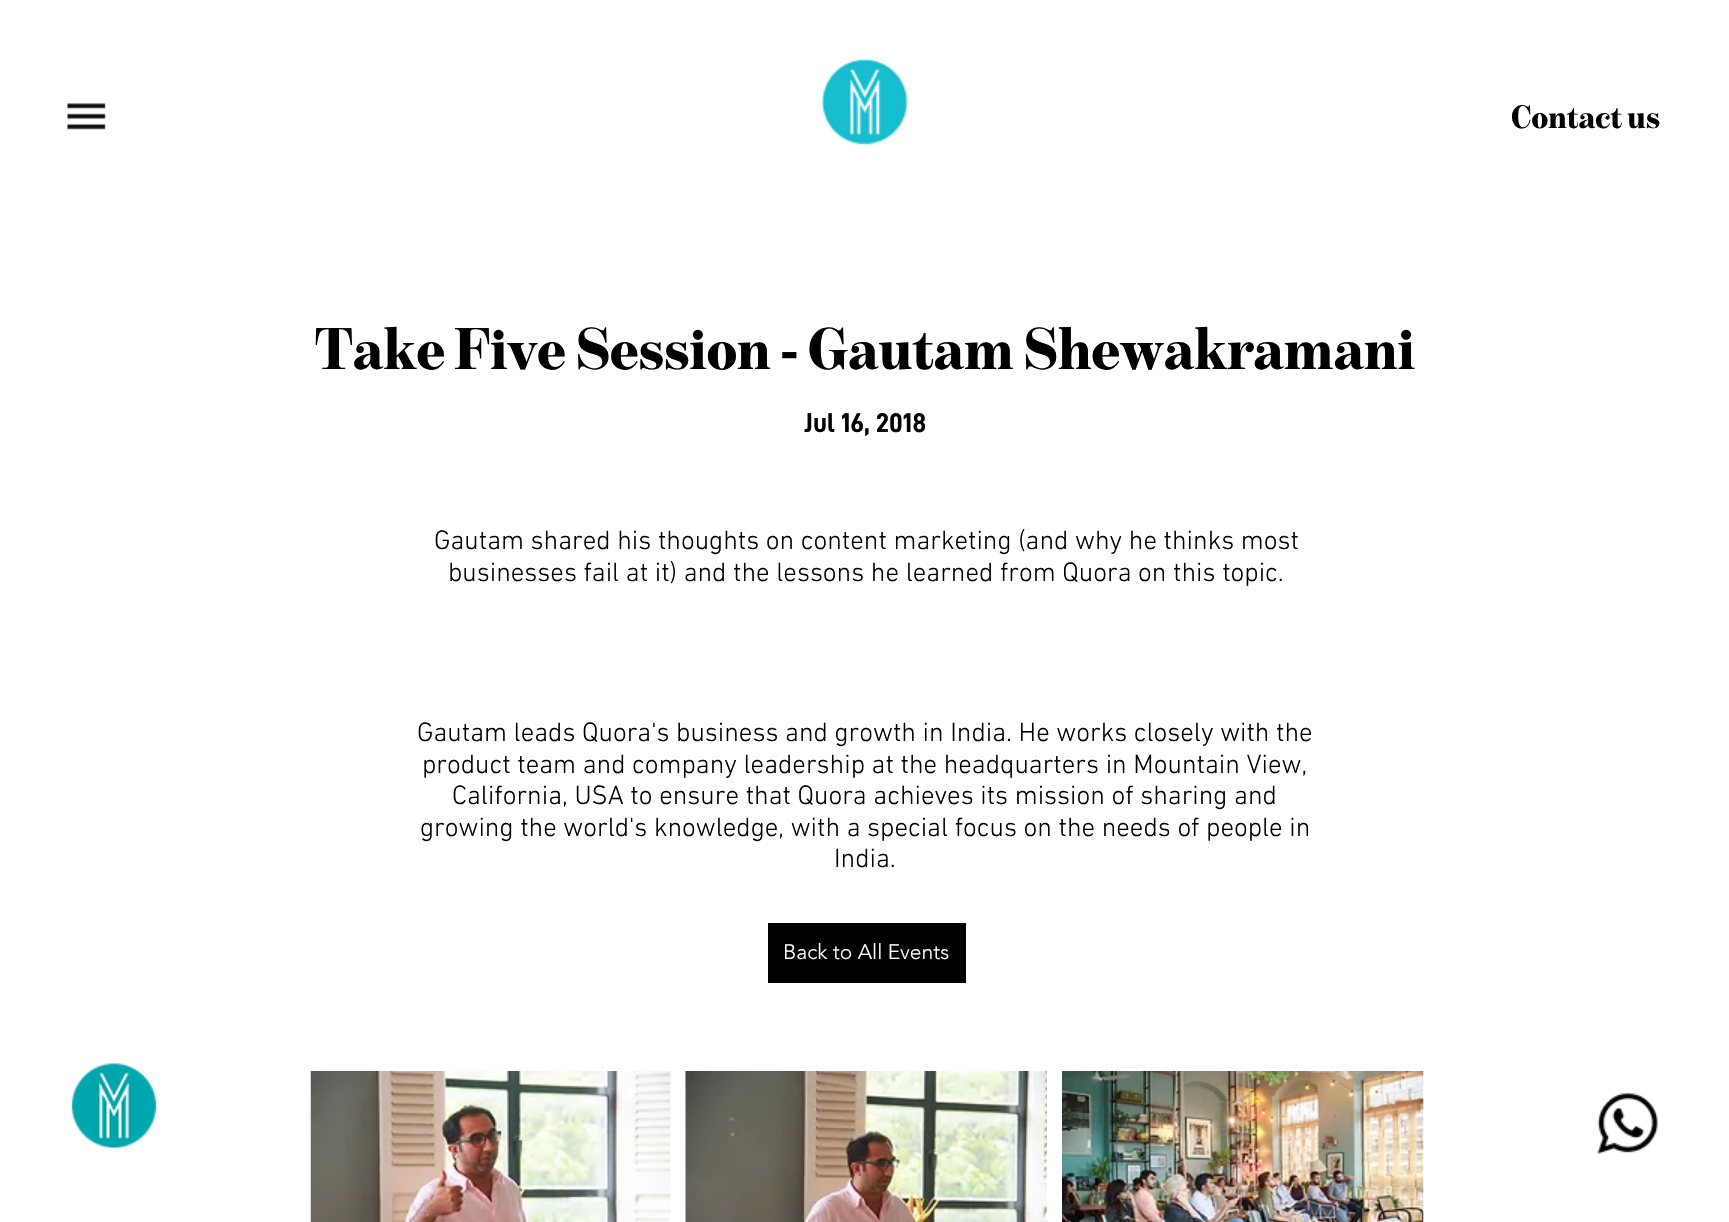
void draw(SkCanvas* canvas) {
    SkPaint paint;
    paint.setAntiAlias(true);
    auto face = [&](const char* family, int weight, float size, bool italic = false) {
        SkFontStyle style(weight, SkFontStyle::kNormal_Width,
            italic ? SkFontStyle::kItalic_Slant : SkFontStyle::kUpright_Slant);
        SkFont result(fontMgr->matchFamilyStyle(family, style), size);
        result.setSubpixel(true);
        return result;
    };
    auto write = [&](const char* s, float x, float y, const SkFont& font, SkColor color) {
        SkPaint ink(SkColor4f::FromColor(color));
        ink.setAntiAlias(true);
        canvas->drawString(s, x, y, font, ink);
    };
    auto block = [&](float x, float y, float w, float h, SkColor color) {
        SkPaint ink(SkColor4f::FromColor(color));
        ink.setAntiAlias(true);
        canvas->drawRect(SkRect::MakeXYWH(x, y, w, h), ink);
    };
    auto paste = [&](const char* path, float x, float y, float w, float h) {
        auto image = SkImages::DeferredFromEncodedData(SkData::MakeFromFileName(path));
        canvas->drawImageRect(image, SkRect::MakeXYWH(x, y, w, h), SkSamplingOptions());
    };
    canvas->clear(SK_ColorWHITE);
    paste("pic1.png", 67, 103, 39, 27);
    paste("pic2.png", 821, 58, 87, 87);
    auto kFont1 = face("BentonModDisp", 900, 33);
    write("Contact us", 1511, 128, kFont1, SK_ColorBLACK);
    auto kFont2 = face("BentonModDisp", 900, 60);
    write("Take Five Session - Gautam Shewakramani", 315, 369, kFont2, SK_ColorBLACK);
    auto kFont3 = face("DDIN", 700, 27);
    write("Jul 16, 2018", 804, 432, kFont3, SK_ColorBLACK);
    auto kFont4 = face("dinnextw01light", 300, 27);
    write("Gautam shared his thoughts on content marketing (and why he thinks most", 434, 549, kFont4, SK_ColorBLACK);
    write("businesses fail at it) and the lessons he learned from Quora on this topic.", 448, 581, kFont4, SK_ColorBLACK);
    write("Gautam leads Quora's business and growth in India. He works closely with the", 417, 741, kFont4, SK_ColorBLACK);
    write("product team and company leadership at the headquarters in Mountain View,", 422, 773, kFont4, SK_ColorBLACK);
    write("California, USA to ensure that Quora achieves its mission of sharing and", 452, 804, kFont4, SK_ColorBLACK);
    write("growing the world's knowledge, with a special focus on the needs of people in", 420, 836, kFont4, SK_ColorBLACK);
    write("India.", 834, 867, kFont4, SK_ColorBLACK);
    block(768, 923, 198, 60, SK_ColorBLACK);
    auto kFont5 = face("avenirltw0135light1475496", 300, 21);
    write("Back to All Events", 783, 959, kFont5, SK_ColorWHITE);
    paste("pic3.png", 310, 1071, 361, 151);
    paste("pic4.png", 685, 1071, 362, 151);
    paste("pic5.png", 1062, 1071, 362, 151);
    paste("pic6.png", 71, 1063, 86, 85);
    paste("pic7.png", 1597, 1093, 61, 61);
}
